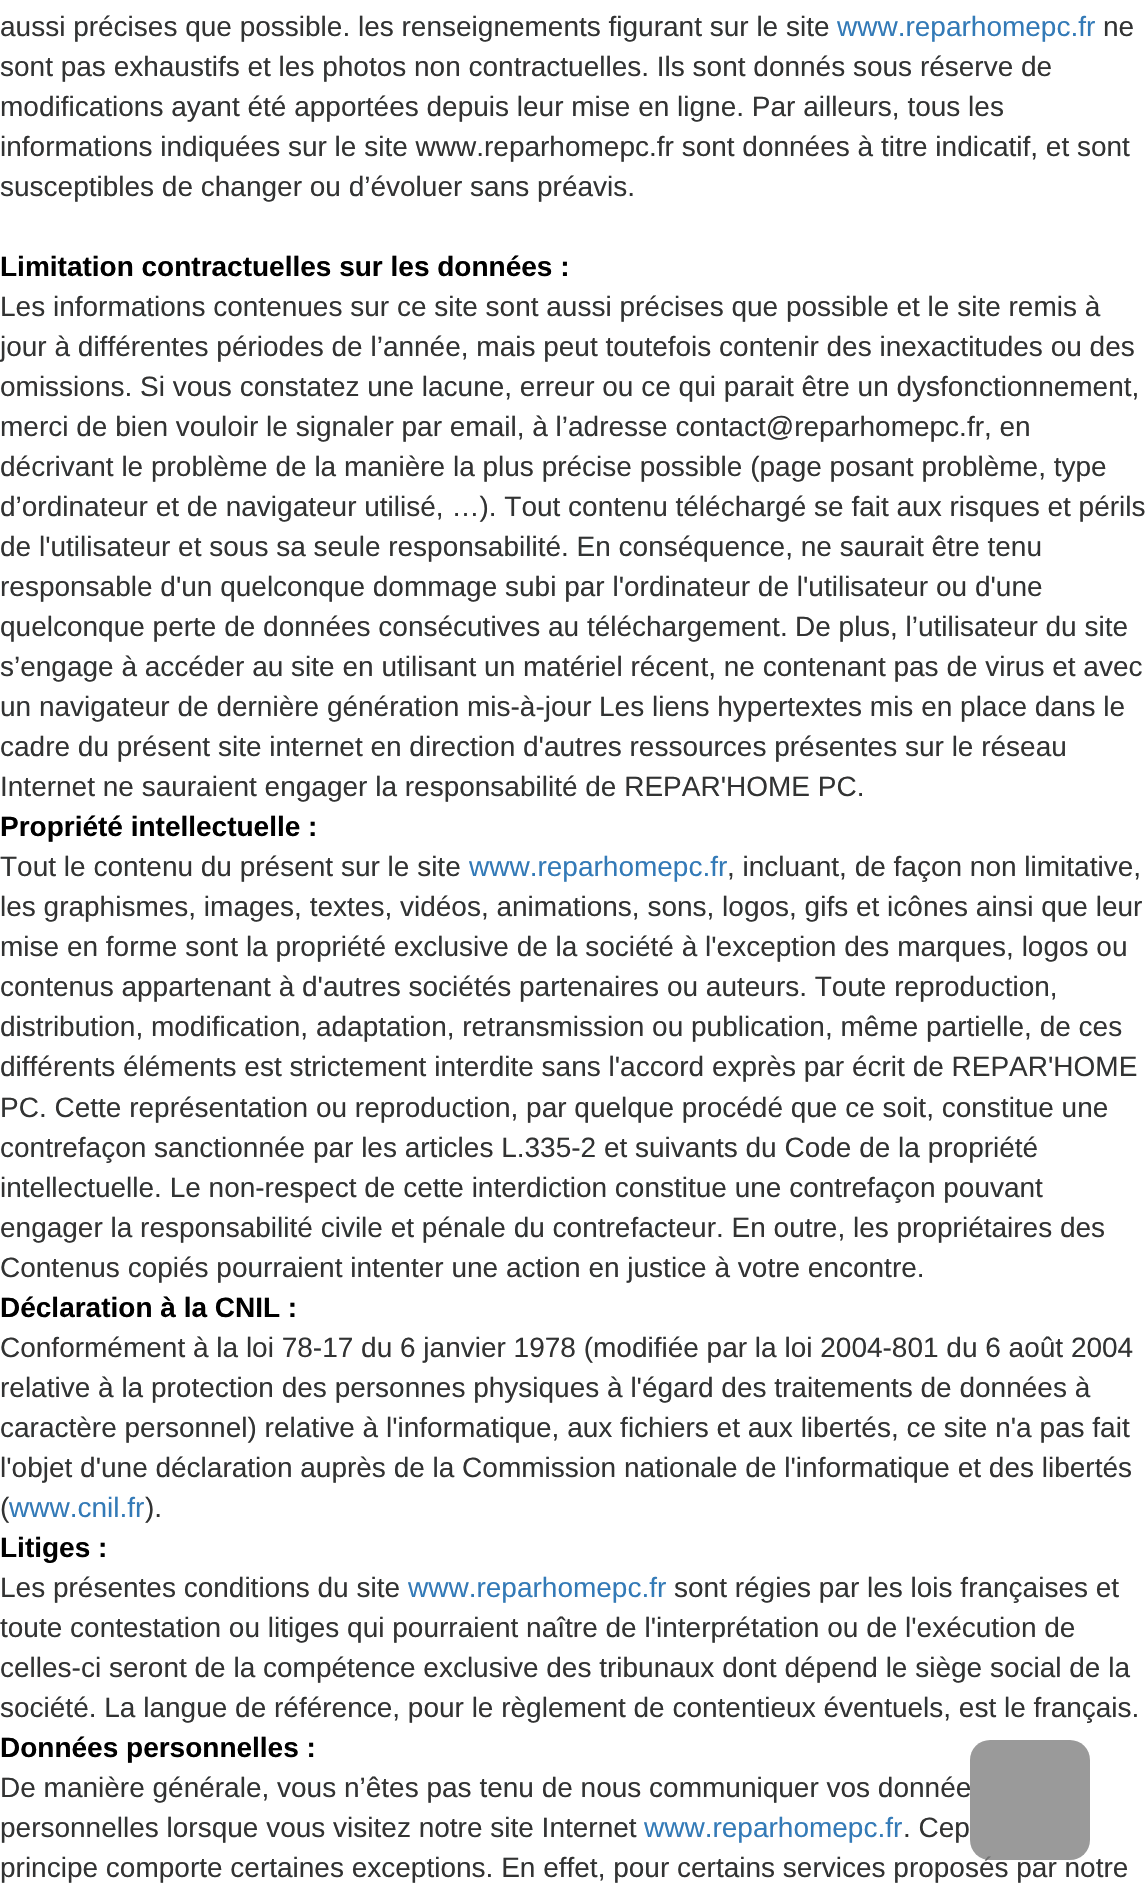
void draw(SkCanvas* canvas) {
    SkPaint paint;
    paint.setAntiAlias(true);
    auto face = [&](const char* family, int weight, float size, bool italic = false) {
        SkFontStyle style(weight, SkFontStyle::kNormal_Width,
            italic ? SkFontStyle::kItalic_Slant : SkFontStyle::kUpright_Slant);
        SkFont result(fontMgr->matchFamilyStyle(family, style), size);
        result.setSubpixel(true);
        return result;
    };
    auto write = [&](const char* s, float x, float y, const SkFont& font, SkColor color) {
        SkPaint ink(SkColor4f::FromColor(color));
        ink.setAntiAlias(true);
        canvas->drawString(s, x, y, font, ink);
    };
    auto card = [&](float x, float y, float w, float h, float radius, SkColor color) {
        SkPaint ink(SkColor4f::FromColor(color));
        ink.setAntiAlias(true);
        canvas->drawRoundRect(SkRect::MakeXYWH(x, y, w, h), radius, radius, ink);
    };
    canvas->clear(SK_ColorWHITE);
    auto kFont1 = face("Liberation Sans", 400, 28);
    write("aussi précises que possible. les renseignements figurant sur le site", 0, 36, kFont1, SkColorSetRGB(50, 51, 51));
    write("www.reparhomepc.fr", 837, 36, kFont1, SkColorSetRGB(51, 122, 183));
    write("ne", 1103, 36, kFont1, SkColorSetRGB(50, 51, 51));
    write("sont pas exhaustifs et les photos non contractuelles. Ils sont donnés sous réserve de", 0, 76, kFont1, SkColorSetRGB(50, 51, 51));
    write("modifications ayant été apportées depuis leur mise en ligne. Par ailleurs, tous les", 0, 116, kFont1, SkColorSetRGB(50, 51, 51));
    write("informations indiquées sur le site www.reparhomepc.fr sont données à titre indicatif, et sont", 0, 156, kFont1, SkColorSetRGB(50, 51, 51));
    write("susceptibles de changer ou d’évoluer sans préavis.", 0, 196, kFont1, SkColorSetRGB(50, 51, 51));
    auto kFont2 = face("Liberation Sans", 700, 28);
    write("Limitation contractuelles sur les données :", 0, 276, kFont2, SK_ColorBLACK);
    write("Les informations contenues sur ce site sont aussi précises que possible et le site remis à", 0, 316, kFont1, SkColorSetRGB(50, 51, 51));
    write("jour à différentes périodes de l’année, mais peut toutefois contenir des inexactitudes ou des", 0, 356, kFont1, SkColorSetRGB(50, 51, 51));
    write("omissions. Si vous constatez une lacune, erreur ou ce qui parait être un dysfonctionnement,", 0, 396, kFont1, SkColorSetRGB(50, 51, 51));
    write("merci de bien vouloir le signaler par email, à l’adresse contact@reparhomepc.fr, en", 0, 436, kFont1, SkColorSetRGB(50, 51, 51));
    write("décrivant le problème de la manière la plus précise possible (page posant problème, type", 0, 476, kFont1, SkColorSetRGB(50, 51, 51));
    write("d’ordinateur et de navigateur utilisé, …). Tout contenu téléchargé se fait aux risques et périls", 0, 516, kFont1, SkColorSetRGB(50, 51, 51));
    write("de l'utilisateur et sous sa seule responsabilité. En conséquence, ne saurait être tenu", 0, 556, kFont1, SkColorSetRGB(50, 51, 51));
    write("responsable d'un quelconque dommage subi par l'ordinateur de l'utilisateur ou d'une", 0, 596, kFont1, SkColorSetRGB(50, 51, 51));
    write("quelconque perte de données consécutives au téléchargement.", 0, 636, kFont1, SkColorSetRGB(50, 51, 51));
    write("De plus, l’utilisateur du site", 795, 636, kFont1, SkColorSetRGB(50, 51, 51));
    write("s’engage à accéder au site en utilisant un matériel récent, ne contenant pas de virus et avec", 0, 676, kFont1, SkColorSetRGB(50, 51, 51));
    write("un navigateur de dernière génération mis-à-jour", 0, 716, kFont1, SkColorSetRGB(50, 51, 51));
    write("Les liens hypertextes mis en place dans le", 599, 716, kFont1, SkColorSetRGB(50, 51, 51));
    write("cadre du présent site internet en direction d'autres ressources présentes sur le réseau", 0, 756, kFont1, SkColorSetRGB(50, 51, 51));
    write("Internet ne sauraient engager la responsabilité de REPAR'HOME PC.", 0, 796, kFont1, SkColorSetRGB(50, 51, 51));
    write("Propriété intellectuelle :", 0, 836, kFont2, SK_ColorBLACK);
    write("Tout le contenu du présent sur le site", 0, 876, kFont1, SkColorSetRGB(50, 51, 51));
    write("www.reparhomepc.fr", 469, 876, kFont1, SkColorSetRGB(51, 122, 183));
    write(", incluant, de façon non limitative,", 727, 876, kFont1, SkColorSetRGB(50, 51, 51));
    write("les graphismes, images, textes, vidéos, animations, sons, logos, gifs et icônes ainsi que leur", 0, 916, kFont1, SkColorSetRGB(50, 51, 51));
    write("mise en forme sont la propriété exclusive de la société à l'exception des marques, logos ou", 0, 956, kFont1, SkColorSetRGB(50, 51, 51));
    write("contenus appartenant à d'autres sociétés partenaires ou auteurs. Toute reproduction,", 0, 996, kFont1, SkColorSetRGB(50, 51, 51));
    write("distribution, modification, adaptation, retransmission ou publication, même partielle, de ces", 0, 1036, kFont1, SkColorSetRGB(50, 51, 51));
    write("différents éléments est strictement interdite sans l'accord exprès par écrit de REPAR'HOME", 0, 1076, kFont1, SkColorSetRGB(50, 51, 51));
    write("PC. Cette représentation ou reproduction, par quelque procédé que ce soit, constitue une", 0, 1117, kFont1, SkColorSetRGB(50, 51, 51));
    write("contrefaçon sanctionnée par les articles L.335-2 et suivants du Code de la propriété", 0, 1157, kFont1, SkColorSetRGB(50, 51, 51));
    write("intellectuelle. Le non-respect de cette interdiction constitue une contrefaçon pouvant", 0, 1197, kFont1, SkColorSetRGB(50, 51, 51));
    write("engager la responsabilité civile et pénale du contrefacteur. En outre, les propriétaires des", 0, 1237, kFont1, SkColorSetRGB(50, 51, 51));
    write("Contenus copiés pourraient intenter une action en justice à votre encontre.", 0, 1277, kFont1, SkColorSetRGB(50, 51, 51));
    write("Déclaration à la CNIL :", 0, 1317, kFont2, SK_ColorBLACK);
    write("Conformément à la loi 78-17 du 6 janvier 1978 (modifiée par la loi 2004-801 du 6 août 2004", 0, 1357, kFont1, SkColorSetRGB(50, 51, 51));
    write("relative à la protection des personnes physiques à l'égard des traitements de données à", 0, 1397, kFont1, SkColorSetRGB(50, 51, 51));
    write("caractère personnel) relative à l'informatique, aux fichiers et aux libertés, ce site n'a pas fait", 0, 1437, kFont1, SkColorSetRGB(50, 51, 51));
    write("l'objet d'une déclaration auprès de la Commission nationale de l'informatique et des libertés", 0, 1477, kFont1, SkColorSetRGB(50, 51, 51));
    write("(", 0, 1517, kFont1, SkColorSetRGB(50, 51, 51));
    write("www.cnil.fr", 9, 1517, kFont1, SkColorSetRGB(51, 122, 183));
    write(").", 145, 1517, kFont1, SkColorSetRGB(50, 51, 51));
    write("Litiges :", 0, 1557, kFont2, SK_ColorBLACK);
    write("Les présentes conditions du site", 0, 1597, kFont1, SkColorSetRGB(50, 51, 51));
    write("www.reparhomepc.fr", 408, 1597, kFont1, SkColorSetRGB(51, 122, 183));
    write("sont régies par les lois françaises et", 674, 1597, kFont1, SkColorSetRGB(50, 51, 51));
    write("toute contestation ou litiges qui pourraient naître de l'interprétation ou de l'exécution de", 0, 1637, kFont1, SkColorSetRGB(50, 51, 51));
    write("celles-ci seront de la compétence exclusive des tribunaux dont dépend le siège social de la", 0, 1677, kFont1, SkColorSetRGB(50, 51, 51));
    write("société. La langue de référence, pour le règlement de contentieux éventuels, est le français.", 0, 1717, kFont1, SkColorSetRGB(50, 51, 51));
    write("Données personnelles :", 0, 1757, kFont2, SK_ColorBLACK);
    write("De manière générale, vous n’êtes pas tenu de nous communiquer vos donnée", 0, 1797, kFont1, SkColorSetRGB(50, 51, 51));
    write("personnelles lorsque vous visitez notre site Internet", 0, 1837, kFont1, SkColorSetRGB(50, 51, 51));
    write("www.reparhomepc.fr", 644, 1837, kFont1, SkColorSetRGB(51, 122, 183));
    write(". Cep", 903, 1837, kFont1, SkColorSetRGB(50, 51, 51));
    write("principe comporte certaines exceptions. En effet, pour certains services proposés par notre", 0, 1877, kFont1, SkColorSetRGB(50, 51, 51));
    card(970, 1740, 120, 120, 20, SkColorSetARGB(204, 129, 129, 129));
}
